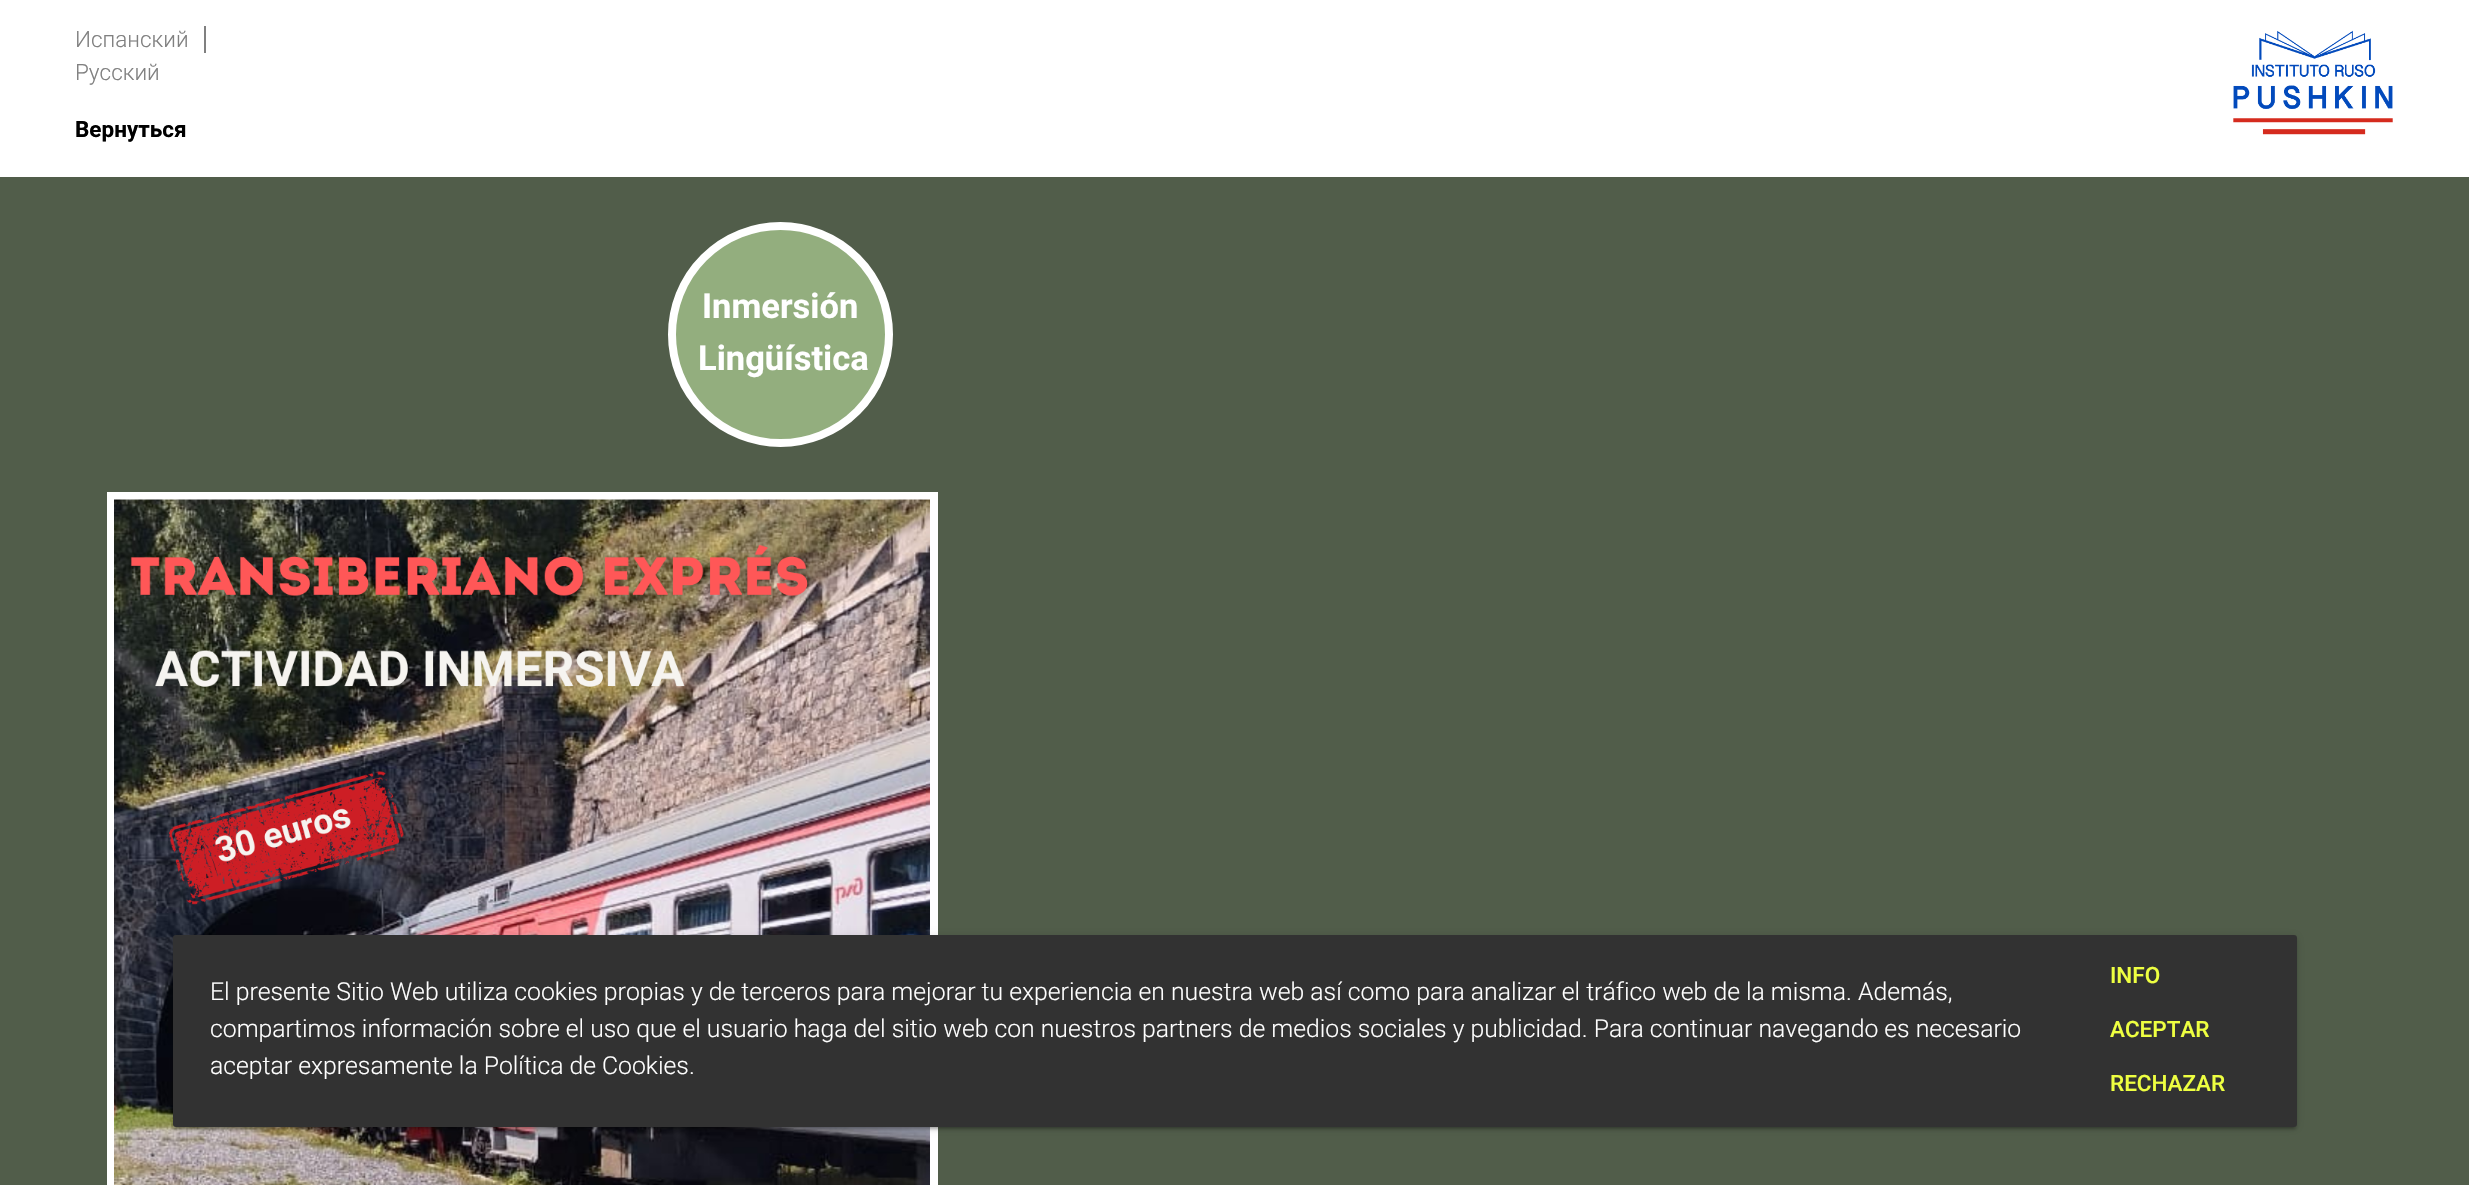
void draw(SkCanvas* canvas) {
    SkPaint paint;
    paint.setAntiAlias(true);
    auto face = [&](const char* family, int weight, float size, bool italic = false) {
        SkFontStyle style(weight, SkFontStyle::kNormal_Width,
            italic ? SkFontStyle::kItalic_Slant : SkFontStyle::kUpright_Slant);
        SkFont result(fontMgr->matchFamilyStyle(family, style), size);
        result.setSubpixel(true);
        return result;
    };
    auto write = [&](const char* s, float x, float y, const SkFont& font, SkColor color) {
        SkPaint ink(SkColor4f::FromColor(color));
        ink.setAntiAlias(true);
        canvas->drawString(s, x, y, font, ink);
    };
    auto block = [&](float x, float y, float w, float h, SkColor color) {
        SkPaint ink(SkColor4f::FromColor(color));
        ink.setAntiAlias(true);
        canvas->drawRect(SkRect::MakeXYWH(x, y, w, h), ink);
    };
    auto card = [&](float x, float y, float w, float h, float radius, SkColor color) {
        SkPaint ink(SkColor4f::FromColor(color));
        ink.setAntiAlias(true);
        canvas->drawRoundRect(SkRect::MakeXYWH(x, y, w, h), radius, radius, ink);
    };
    auto paste = [&](const char* path, float x, float y, float w, float h) {
        auto image = SkImages::DeferredFromEncodedData(SkData::MakeFromFileName(path));
        canvas->drawImageRect(image, SkRect::MakeXYWH(x, y, w, h), SkSamplingOptions());
    };
    canvas->clear(SK_ColorWHITE);
    auto kFont1 = face("Roboto", 300, 22.5f);
    write("Испанский", 75, 47, kFont1, SkColorSetRGB(128, 128, 128));
    block(204, 26, 2, 27, SkColorSetRGB(128, 128, 128));
    write("Русский", 75, 80, kFont1, SkColorSetRGB(128, 128, 128));
    auto kFont2 = face("Roboto", 700, 22.5f);
    write("Вернуться", 75, 137, kFont2, SK_ColorBLACK);
    paste("pic1.png", 2233, 30, 160, 105);
    block(0, 177, 2469, 1008, SkColorSetRGB(81, 93, 74));
    paint.setColor(SkColorSetRGB(147, 174, 126));
    canvas->drawCircle(780.5f, 334.5f, 108.5f, paint);
    paint.setStyle(SkPaint::kStroke_Style);
    paint.setStrokeWidth(8);
    paint.setColor(SK_ColorWHITE);
    canvas->drawCircle(780.5f, 334.5f, 108.5f, paint);
    auto kFont3 = face("Roboto", 700, 34.5f);
    write("Inmersión", 702, 318, kFont3, SK_ColorWHITE);
    write("Lingüística", 698, 370, kFont3, SK_ColorWHITE);
    canvas->drawRect(SkRect::MakeXYWH(111, 496, 823, 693), paint);
    paste("pic2.png", 114, 499, 816, 686);
    paint.setStyle(SkPaint::kFill_Style);
    paint.setColor(SkColorSetARGB(51, 0, 0, 0));
    paint.setMaskFilter(SkMaskFilter::MakeBlur(kNormal_SkBlurStyle, 1));
    canvas->drawRect(SkRect::MakeXYWH(176, 942, 2118, 186), paint);
    paint.setMaskFilter(nullptr);
    paint.setColor(SkColorSetARGB(31, 0, 0, 0));
    paint.setMaskFilter(SkMaskFilter::MakeBlur(kNormal_SkBlurStyle, 4));
    canvas->drawRoundRect(SkRect::MakeXYWH(173, 936, 2124, 192), 3, 3, paint);
    paint.setMaskFilter(nullptr);
    paint.setColor(SkColorSetARGB(36, 0, 0, 0));
    paint.setMaskFilter(SkMaskFilter::MakeBlur(kNormal_SkBlurStyle, 1.5f));
    canvas->drawRoundRect(SkRect::MakeXYWH(173, 938, 2124, 192), 3, 3, paint);
    paint.setMaskFilter(nullptr);
    card(173, 935, 2124, 192, 3, SkColorSetRGB(50, 50, 50));
    auto kFont4 = face("Roboto", 300, 24.75f);
    write("El presente Sitio Web utiliza cookies propias y de terceros para mejorar tu experiencia en nuestra web así como para analizar el tráfico web de la misma. Además,", 210, 1000, kFont4, SK_ColorWHITE);
    write("compartimos información sobre el uso que el usuario haga del sitio web con nuestros partners de medios sociales y publicidad. Para continuar navegando es necesario", 210, 1037, kFont4, SK_ColorWHITE);
    write("aceptar expresamente la Política de Cookies.", 210, 1074, kFont4, SK_ColorWHITE);
    auto kFont5 = face("Roboto", 500, 22.5f);
    write("INFO", 2110, 983, kFont5, SkColorSetRGB(238, 255, 65));
    write("ACEPTAR", 2110, 1037, kFont5, SkColorSetRGB(238, 255, 65));
    write("RECHAZAR", 2110, 1091, kFont5, SkColorSetRGB(238, 255, 65));
}
